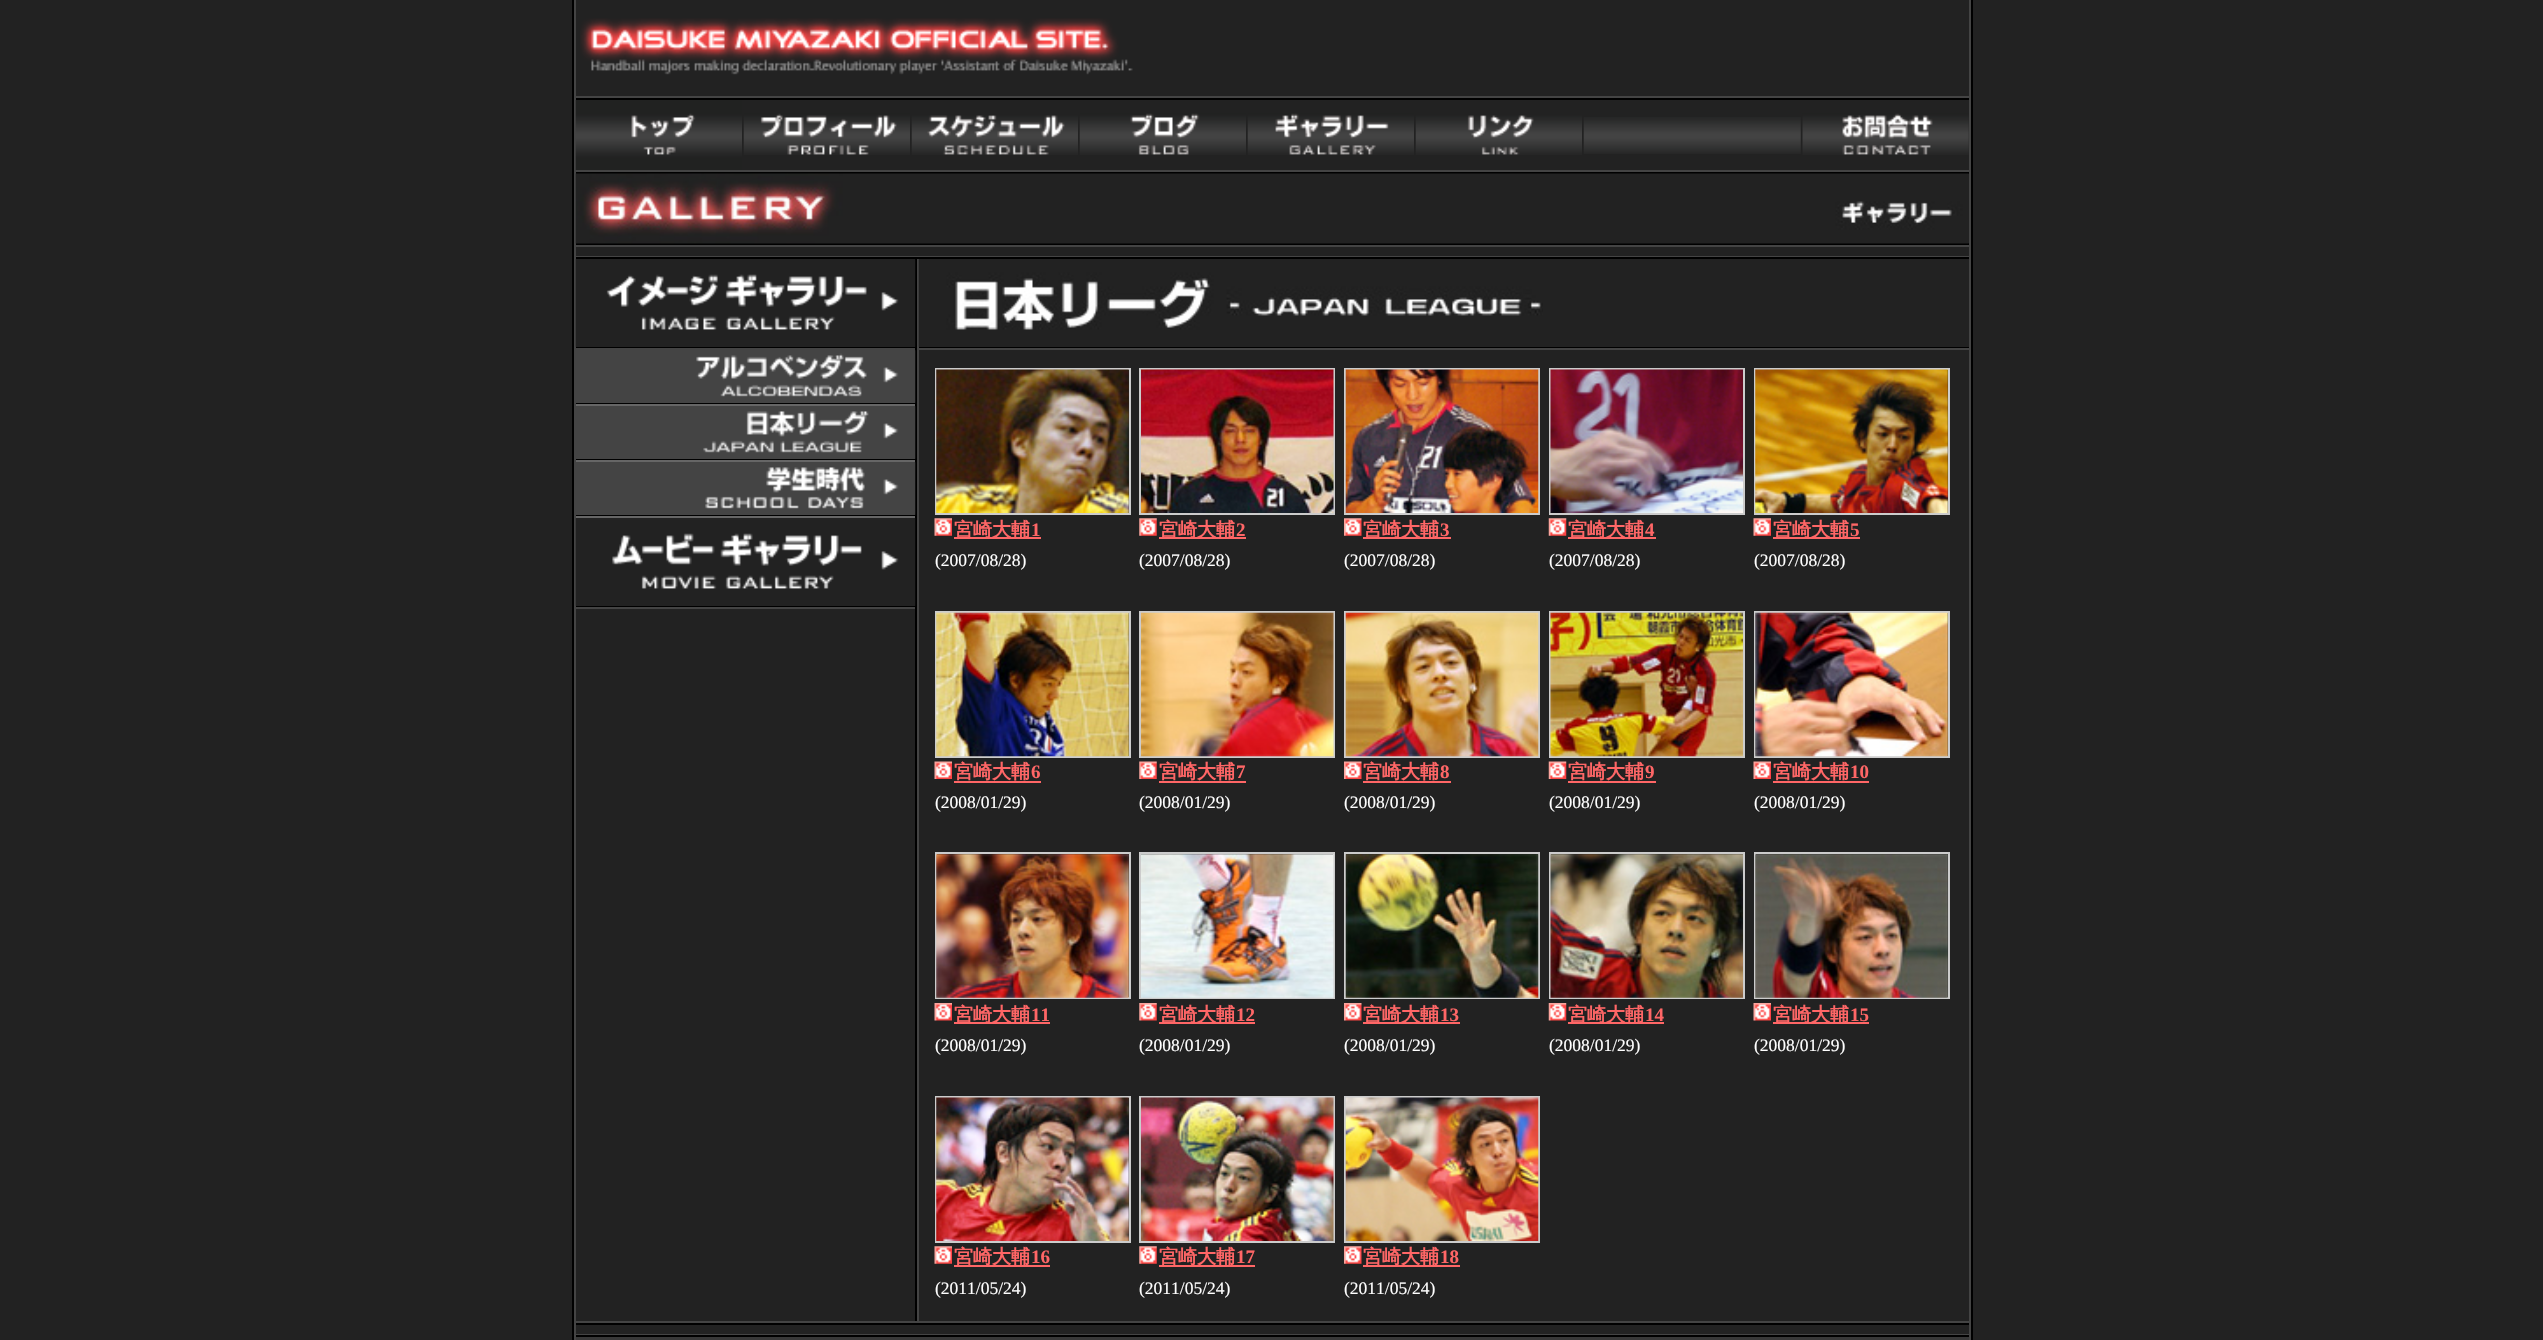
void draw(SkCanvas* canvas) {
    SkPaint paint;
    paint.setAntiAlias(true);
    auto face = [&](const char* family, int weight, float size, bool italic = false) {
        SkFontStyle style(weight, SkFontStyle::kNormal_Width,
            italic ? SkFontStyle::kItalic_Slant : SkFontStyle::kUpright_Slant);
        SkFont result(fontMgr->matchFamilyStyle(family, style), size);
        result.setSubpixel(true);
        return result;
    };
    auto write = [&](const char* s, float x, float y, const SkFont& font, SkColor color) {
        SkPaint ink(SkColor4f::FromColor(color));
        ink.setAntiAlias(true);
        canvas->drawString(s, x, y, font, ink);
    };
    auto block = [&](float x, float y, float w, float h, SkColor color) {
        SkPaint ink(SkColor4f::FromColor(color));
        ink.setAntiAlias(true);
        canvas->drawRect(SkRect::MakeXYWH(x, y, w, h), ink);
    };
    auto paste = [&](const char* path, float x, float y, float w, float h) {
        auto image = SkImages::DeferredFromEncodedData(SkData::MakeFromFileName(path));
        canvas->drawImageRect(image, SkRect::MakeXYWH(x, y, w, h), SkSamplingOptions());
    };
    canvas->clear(SkColorSetRGB(34, 34, 34));
    block(572, 0, 2, 1340, SK_ColorBLACK);
    block(574, 0, 2, 1340, SkColorSetRGB(68, 68, 68));
    paste("pic1.png", 580, 18, 553, 57);
    block(576, 96, 1393, 2, SkColorSetRGB(68, 68, 68));
    block(576, 98, 1393, 2, SK_ColorBLACK);
    paste("pic2.png", 575, 100, 167, 70);
    paste("pic3.png", 743, 113, 167, 42);
    paste("pic4.png", 911, 115, 167, 40);
    paste("pic5.png", 1079, 113, 167, 42);
    paste("pic6.png", 1247, 113, 167, 42);
    paste("pic7.png", 1415, 115, 167, 40);
    paste("pic8.png", 1583, 117, 218, 37);
    paste("pic9.png", 1802, 113, 167, 42);
    block(576, 170, 1393, 2, SkColorSetRGB(68, 68, 68));
    block(576, 172, 1393, 2, SK_ColorBLACK);
    block(576, 243, 1393, 2, SK_ColorBLACK);
    paste("pic10.png", 575, 173, 1394, 71);
    block(576, 245, 1393, 2, SkColorSetRGB(68, 68, 68));
    block(576, 256, 1393, 1, SkColorSetRGB(68, 68, 68));
    block(576, 257, 1393, 2, SK_ColorBLACK);
    block(915, 259, 2, 1062, SK_ColorBLACK);
    paste("pic11.png", 575, 259, 341, 88);
    block(576, 347, 339, 1, SK_ColorBLACK);
    block(576, 348, 339, 55, SkColorSetRGB(68, 68, 68));
    paste("pic12.png", 696, 350, 220, 53);
    block(576, 403, 339, 1, SK_ColorBLACK);
    block(576, 404, 339, 2, SkColorSetRGB(102, 102, 102));
    block(576, 406, 339, 53, SkColorSetRGB(68, 68, 68));
    paste("pic13.png", 703, 406, 213, 53);
    block(576, 459, 339, 1, SK_ColorBLACK);
    block(576, 460, 339, 2, SkColorSetRGB(102, 102, 102));
    block(576, 462, 339, 53, SkColorSetRGB(68, 68, 68));
    paste("pic14.png", 705, 462, 211, 53);
    block(576, 515, 339, 1, SK_ColorBLACK);
    block(576, 516, 339, 2, SkColorSetRGB(102, 102, 102));
    paste("pic15.png", 575, 518, 341, 88);
    block(576, 606, 339, 1, SK_ColorBLACK);
    block(576, 607, 339, 2, SkColorSetRGB(68, 68, 68));
    block(917, 259, 2, 1062, SkColorSetRGB(68, 68, 68));
    paste("pic16.png", 918, 259, 625, 88);
    block(919, 347, 1050, 1, SK_ColorBLACK);
    block(919, 348, 1050, 2, SkColorSetRGB(68, 68, 68));
    paint.setStyle(SkPaint::kStroke_Style);
    paint.setStrokeWidth(2);
    paint.setColor(SkColorSetRGB(204, 204, 204));
    canvas->drawRect(SkRect::MakeXYWH(936, 369, 194, 145), paint);
    paste("pic17.png", 936, 369, 193, 144);
    paste("pic18.png", 934, 518, 18, 18);
    block(954, 537, 87, 2, SkColorSetRGB(255, 102, 102));
    auto kFont1 = face("WenQuanYi Zen Hei", 700, 19);
    write("宮崎大輔", 954, 536, kFont1, SkColorSetRGB(255, 102, 102));
    auto kFont2 = face("Liberation Serif", 700, 19);
    write("1", 1031, 536, kFont2, SkColorSetRGB(255, 102, 102));
    auto kFont3 = face("Liberation Serif", 400, 17.5f);
    write("(2007/08/28)", 935, 566, kFont3, SK_ColorWHITE);
    canvas->drawRect(SkRect::MakeXYWH(1140, 369, 194, 145), paint);
    paste("pic19.png", 1141, 369, 193, 144);
    paste("pic20.png", 1139, 518, 18, 18);
    block(1159, 537, 87, 2, SkColorSetRGB(255, 102, 102));
    write("宮崎大輔", 1159, 536, kFont1, SkColorSetRGB(255, 102, 102));
    write("2", 1236, 536, kFont2, SkColorSetRGB(255, 102, 102));
    write("(2007/08/28)", 1139, 566, kFont3, SK_ColorWHITE);
    canvas->drawRect(SkRect::MakeXYWH(1345, 369, 194, 145), paint);
    paste("pic21.png", 1345, 369, 194, 144);
    paste("pic22.png", 1344, 518, 18, 18);
    block(1363, 537, 88, 2, SkColorSetRGB(255, 102, 102));
    write("宮崎大輔", 1363, 536, kFont1, SkColorSetRGB(255, 102, 102));
    write("3", 1440, 536, kFont2, SkColorSetRGB(255, 102, 102));
    write("(2007/08/28)", 1344, 566, kFont3, SK_ColorWHITE);
    canvas->drawRect(SkRect::MakeXYWH(1550, 369, 194, 145), paint);
    paste("pic23.png", 1550, 369, 193, 144);
    paste("pic24.png", 1548, 518, 19, 18);
    block(1568, 537, 88, 2, SkColorSetRGB(255, 102, 102));
    write("宮崎大輔", 1568, 536, kFont1, SkColorSetRGB(255, 102, 102));
    write("4", 1645, 536, kFont2, SkColorSetRGB(255, 102, 102));
    write("(2007/08/28)", 1549, 566, kFont3, SK_ColorWHITE);
    canvas->drawRect(SkRect::MakeXYWH(1755, 369, 194, 145), paint);
    paste("pic25.png", 1755, 369, 193, 144);
    paste("pic18.png", 1753, 518, 18, 18);
    block(1773, 537, 87, 2, SkColorSetRGB(255, 102, 102));
    write("宮崎大輔", 1773, 536, kFont1, SkColorSetRGB(255, 102, 102));
    write("5", 1850, 536, kFont2, SkColorSetRGB(255, 102, 102));
    write("(2007/08/28)", 1754, 566, kFont3, SK_ColorWHITE);
    canvas->drawRect(SkRect::MakeXYWH(936, 612, 194, 145), paint);
    paste("pic26.png", 936, 612, 193, 145);
    paste("pic27.png", 934, 761, 18, 18);
    write("宮崎大輔", 954, 778, kFont1, SkColorSetRGB(255, 102, 102));
    write("6", 1031, 778, kFont2, SkColorSetRGB(255, 102, 102));
    block(954, 781, 87, 2, SkColorSetRGB(255, 102, 102));
    write("(2008/01/29)", 935, 808, kFont3, SK_ColorWHITE);
    canvas->drawRect(SkRect::MakeXYWH(1140, 612, 194, 145), paint);
    paste("pic28.png", 1141, 612, 193, 145);
    paste("pic29.png", 1139, 761, 18, 18);
    write("宮崎大輔", 1159, 778, kFont1, SkColorSetRGB(255, 102, 102));
    write("7", 1236, 778, kFont2, SkColorSetRGB(255, 102, 102));
    block(1159, 781, 87, 2, SkColorSetRGB(255, 102, 102));
    write("(2008/01/29)", 1139, 808, kFont3, SK_ColorWHITE);
    canvas->drawRect(SkRect::MakeXYWH(1345, 612, 194, 145), paint);
    paste("pic30.png", 1345, 612, 194, 145);
    paste("pic31.png", 1344, 761, 18, 18);
    write("宮崎大輔", 1363, 778, kFont1, SkColorSetRGB(255, 102, 102));
    write("8", 1440, 778, kFont2, SkColorSetRGB(255, 102, 102));
    block(1363, 781, 88, 2, SkColorSetRGB(255, 102, 102));
    write("(2008/01/29)", 1344, 808, kFont3, SK_ColorWHITE);
    canvas->drawRect(SkRect::MakeXYWH(1550, 612, 194, 145), paint);
    paste("pic32.png", 1550, 612, 193, 145);
    paste("pic33.png", 1548, 761, 19, 18);
    write("宮崎大輔", 1568, 778, kFont1, SkColorSetRGB(255, 102, 102));
    write("9", 1645, 778, kFont2, SkColorSetRGB(255, 102, 102));
    block(1568, 781, 88, 2, SkColorSetRGB(255, 102, 102));
    write("(2008/01/29)", 1549, 808, kFont3, SK_ColorWHITE);
    canvas->drawRect(SkRect::MakeXYWH(1755, 612, 194, 145), paint);
    paste("pic34.png", 1755, 612, 193, 145);
    paste("pic27.png", 1753, 761, 18, 18);
    write("宮崎大輔", 1773, 778, kFont1, SkColorSetRGB(255, 102, 102));
    write("10", 1850, 778, kFont2, SkColorSetRGB(255, 102, 102));
    block(1773, 781, 96, 2, SkColorSetRGB(255, 102, 102));
    write("(2008/01/29)", 1754, 808, kFont3, SK_ColorWHITE);
    canvas->drawRect(SkRect::MakeXYWH(936, 853, 194, 145), paint);
    paste("pic35.png", 936, 854, 193, 144);
    paste("pic36.png", 934, 1003, 18, 18);
    block(954, 1022, 96, 2, SkColorSetRGB(255, 102, 102));
    write("宮崎大輔", 954, 1021, kFont1, SkColorSetRGB(255, 102, 102));
    write("11", 1031, 1021, kFont2, SkColorSetRGB(255, 102, 102));
    write("(2008/01/29)", 935, 1051, kFont3, SK_ColorWHITE);
    canvas->drawRect(SkRect::MakeXYWH(1140, 853, 194, 145), paint);
    paste("pic37.png", 1141, 854, 193, 144);
    paste("pic38.png", 1139, 1003, 18, 18);
    block(1159, 1022, 96, 2, SkColorSetRGB(255, 102, 102));
    write("宮崎大輔", 1159, 1021, kFont1, SkColorSetRGB(255, 102, 102));
    write("12", 1236, 1021, kFont2, SkColorSetRGB(255, 102, 102));
    write("(2008/01/29)", 1139, 1051, kFont3, SK_ColorWHITE);
    canvas->drawRect(SkRect::MakeXYWH(1345, 853, 194, 145), paint);
    paste("pic39.png", 1345, 854, 194, 144);
    paste("pic40.png", 1344, 1003, 18, 18);
    block(1363, 1022, 97, 2, SkColorSetRGB(255, 102, 102));
    write("宮崎大輔", 1363, 1021, kFont1, SkColorSetRGB(255, 102, 102));
    write("13", 1440, 1021, kFont2, SkColorSetRGB(255, 102, 102));
    write("(2008/01/29)", 1344, 1051, kFont3, SK_ColorWHITE);
    canvas->drawRect(SkRect::MakeXYWH(1550, 853, 194, 145), paint);
    paste("pic41.png", 1550, 854, 193, 144);
    paste("pic42.png", 1548, 1003, 19, 18);
    block(1568, 1022, 96, 2, SkColorSetRGB(255, 102, 102));
    write("宮崎大輔", 1568, 1021, kFont1, SkColorSetRGB(255, 102, 102));
    write("14", 1645, 1021, kFont2, SkColorSetRGB(255, 102, 102));
    write("(2008/01/29)", 1549, 1051, kFont3, SK_ColorWHITE);
    canvas->drawRect(SkRect::MakeXYWH(1755, 853, 194, 145), paint);
    paste("pic43.png", 1755, 854, 193, 144);
    paste("pic36.png", 1753, 1003, 18, 18);
    block(1773, 1022, 96, 2, SkColorSetRGB(255, 102, 102));
    write("宮崎大輔", 1773, 1021, kFont1, SkColorSetRGB(255, 102, 102));
    write("15", 1850, 1021, kFont2, SkColorSetRGB(255, 102, 102));
    write("(2008/01/29)", 1754, 1051, kFont3, SK_ColorWHITE);
    canvas->drawRect(SkRect::MakeXYWH(936, 1097, 194, 145), paint);
    paste("pic44.png", 936, 1097, 193, 144);
    paste("pic18.png", 934, 1246, 18, 18);
    block(954, 1265, 96, 2, SkColorSetRGB(255, 102, 102));
    write("宮崎大輔", 954, 1263, kFont1, SkColorSetRGB(255, 102, 102));
    write("16", 1031, 1263, kFont2, SkColorSetRGB(255, 102, 102));
    write("(2011/05/24)", 935, 1294, kFont3, SK_ColorWHITE);
    canvas->drawRect(SkRect::MakeXYWH(1140, 1097, 194, 145), paint);
    paste("pic45.png", 1141, 1097, 193, 144);
    paste("pic20.png", 1139, 1246, 18, 18);
    block(1159, 1265, 96, 2, SkColorSetRGB(255, 102, 102));
    write("宮崎大輔", 1159, 1263, kFont1, SkColorSetRGB(255, 102, 102));
    write("17", 1236, 1263, kFont2, SkColorSetRGB(255, 102, 102));
    write("(2011/05/24)", 1139, 1294, kFont3, SK_ColorWHITE);
    canvas->drawRect(SkRect::MakeXYWH(1345, 1097, 194, 145), paint);
    paste("pic46.png", 1345, 1097, 194, 144);
    paste("pic22.png", 1344, 1246, 18, 18);
    block(1363, 1265, 97, 2, SkColorSetRGB(255, 102, 102));
    write("宮崎大輔", 1363, 1263, kFont1, SkColorSetRGB(255, 102, 102));
    write("18", 1440, 1263, kFont2, SkColorSetRGB(255, 102, 102));
    write("(2011/05/24)", 1344, 1294, kFont3, SK_ColorWHITE);
    block(576, 1321, 1393, 2, SkColorSetRGB(68, 68, 68));
    block(576, 1323, 1393, 2, SK_ColorBLACK);
    block(576, 1334, 1393, 1, SkColorSetRGB(68, 68, 68));
    block(576, 1335, 1393, 2, SK_ColorBLACK);
    block(576, 1337, 1393, 3, SkColorSetRGB(56, 56, 56));
    block(1969, 0, 2, 1340, SkColorSetRGB(68, 68, 68));
    block(1971, 0, 2, 1340, SK_ColorBLACK);
}
